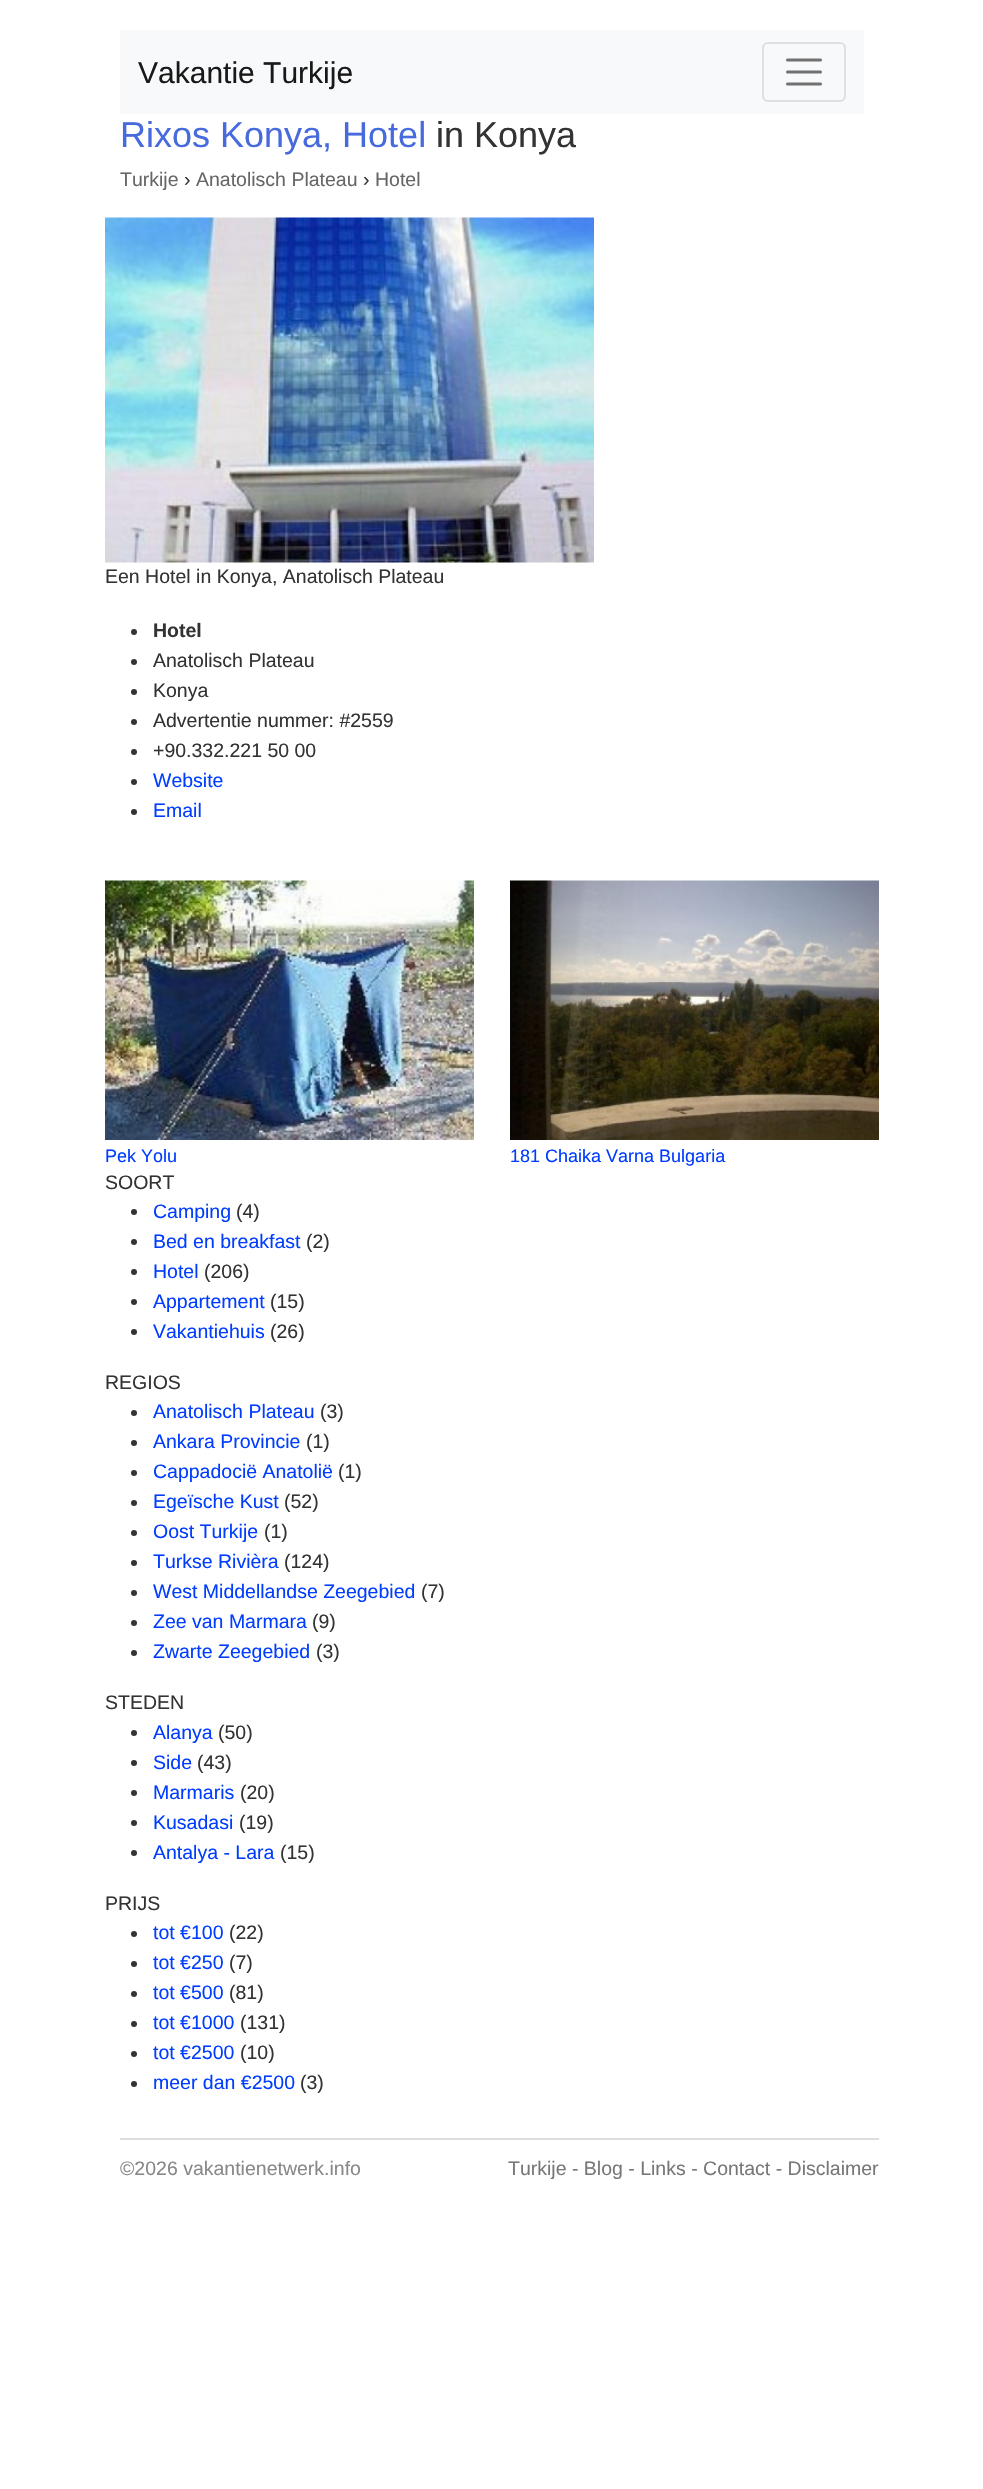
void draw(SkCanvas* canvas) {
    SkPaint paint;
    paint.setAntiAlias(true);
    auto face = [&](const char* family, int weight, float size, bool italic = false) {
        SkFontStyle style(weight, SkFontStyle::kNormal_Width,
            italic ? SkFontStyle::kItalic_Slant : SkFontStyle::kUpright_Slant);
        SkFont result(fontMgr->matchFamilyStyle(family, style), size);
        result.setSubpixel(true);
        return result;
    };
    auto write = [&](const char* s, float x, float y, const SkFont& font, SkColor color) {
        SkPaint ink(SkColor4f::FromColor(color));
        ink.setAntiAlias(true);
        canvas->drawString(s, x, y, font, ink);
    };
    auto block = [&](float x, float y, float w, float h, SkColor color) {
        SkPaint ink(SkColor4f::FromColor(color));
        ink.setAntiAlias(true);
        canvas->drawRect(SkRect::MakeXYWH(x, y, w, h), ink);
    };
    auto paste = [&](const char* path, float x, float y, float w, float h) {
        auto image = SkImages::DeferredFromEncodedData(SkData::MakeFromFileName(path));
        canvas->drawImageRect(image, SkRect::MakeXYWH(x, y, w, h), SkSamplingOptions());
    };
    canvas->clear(SK_ColorWHITE);
    block(120, 30, 744, 84, SkColorSetRGB(248, 249, 250));
    auto kFont1 = face("Liberation Sans", 400, 30);
    write("Vakantie Turkije", 138, 83, kFont1, SkColorSetRGB(25, 25, 25));
    paint.setStyle(SkPaint::kStroke_Style);
    paint.setStrokeWidth(2);
    paint.setColor(SkColorSetRGB(223, 224, 225));
    canvas->drawRoundRect(SkRect::MakeXYWH(763, 43, 82, 58), 5, 5, paint);
    paint.setStrokeWidth(3);
    paint.setStrokeCap(SkPaint::kRound_Cap);
    paint.setColor(SkColorSetRGB(112, 112, 113));
    canvas->drawPath(SkPathBuilder().moveTo(787.5f, 60).lineTo(820.5f, 60).moveTo(787.5f, 72).lineTo(820.5f, 72).moveTo(787.5f, 84).lineTo(820.5f, 84).detach(), paint);
    auto kFont2 = face("Liberation Sans", 400, 36);
    write("Rixos Konya, Hotel", 120, 147, kFont2, SkColorSetRGB(71, 107, 221));
    write("in Konya", 436, 147, kFont2, SkColorSetRGB(51, 51, 51));
    auto kFont3 = face("Liberation Sans", 400, 19.5f);
    write("Turkije", 120, 186, kFont3, SkColorSetRGB(102, 102, 102));
    write("›", 184, 186, kFont3, SkColorSetRGB(51, 51, 51));
    write("Anatolisch Plateau", 196, 186, kFont3, SkColorSetRGB(102, 102, 102));
    write("›", 363, 186, kFont3, SkColorSetRGB(51, 51, 51));
    write("Hotel", 375, 186, kFont3, SkColorSetRGB(102, 102, 102));
    paste("pic1.png", 105, 217, 489, 346);
    write("Een Hotel in Konya, Anatolisch Plateau", 105, 583, kFont3, SkColorSetRGB(51, 51, 51));
    paint.setStyle(SkPaint::kFill_Style);
    paint.setColor(SkColorSetRGB(51, 51, 51));
    canvas->drawCircle(134, 632, 3, paint);
    auto kFont4 = face("Liberation Sans", 700, 19.5f);
    write("Hotel", 153, 637, kFont4, SkColorSetRGB(51, 51, 51));
    canvas->drawCircle(134, 662, 3, paint);
    write("Anatolisch Plateau", 153, 667, kFont3, SkColorSetRGB(51, 51, 51));
    canvas->drawCircle(134, 692, 3, paint);
    write("Konya", 153, 697, kFont3, SkColorSetRGB(51, 51, 51));
    canvas->drawCircle(134, 722, 3, paint);
    write("Advertentie nummer: #2559", 153, 727, kFont3, SkColorSetRGB(51, 51, 51));
    canvas->drawCircle(134, 752, 3, paint);
    write("+90.332.221 50 00", 153, 757, kFont3, SkColorSetRGB(51, 51, 51));
    canvas->drawCircle(134, 782, 3, paint);
    write("Website", 153, 787, kFont3, SkColorSetRGB(0, 61, 255));
    canvas->drawCircle(134, 812, 3, paint);
    write("Email", 153, 817, kFont3, SkColorSetRGB(0, 61, 255));
    paste("pic2.png", 105, 880, 369, 260);
    auto kFont5 = face("Liberation Sans", 400, 18);
    write("Pek Yolu", 105, 1162, kFont5, SkColorSetRGB(0, 61, 255));
    paste("pic3.png", 510, 880, 369, 260);
    write("181 Chaika Varna Bulgaria", 510, 1162, kFont5, SkColorSetRGB(0, 61, 255));
    write("SOORT", 105, 1189, kFont3, SkColorSetRGB(51, 51, 51));
    canvas->drawCircle(134, 1212, 3, paint);
    write("Camping", 153, 1218, kFont3, SkColorSetRGB(0, 61, 255));
    write("(4)", 236, 1218, kFont3, SkColorSetRGB(51, 51, 51));
    canvas->drawCircle(134, 1242, 3, paint);
    write("Bed en breakfast", 153, 1248, kFont3, SkColorSetRGB(0, 61, 255));
    write("(2)", 306, 1248, kFont3, SkColorSetRGB(51, 51, 51));
    canvas->drawCircle(134, 1272, 3, paint);
    write("Hotel", 153, 1278, kFont3, SkColorSetRGB(0, 61, 255));
    write("(206)", 204, 1278, kFont3, SkColorSetRGB(51, 51, 51));
    canvas->drawCircle(134, 1302, 3, paint);
    write("Appartement", 153, 1308, kFont3, SkColorSetRGB(0, 61, 255));
    write("(15)", 270, 1308, kFont3, SkColorSetRGB(51, 51, 51));
    canvas->drawCircle(134, 1332, 3, paint);
    write("Vakantiehuis", 153, 1338, kFont3, SkColorSetRGB(0, 61, 255));
    write("(26)", 270, 1338, kFont3, SkColorSetRGB(51, 51, 51));
    write("REGIOS", 105, 1389, kFont3, SkColorSetRGB(51, 51, 51));
    canvas->drawCircle(134, 1413, 3, paint);
    write("Anatolisch Plateau", 153, 1418, kFont3, SkColorSetRGB(0, 61, 255));
    write("(3)", 320, 1418, kFont3, SkColorSetRGB(51, 51, 51));
    canvas->drawCircle(134, 1443, 3, paint);
    write("Ankara Provincie", 153, 1448, kFont3, SkColorSetRGB(0, 61, 255));
    write("(1)", 306, 1448, kFont3, SkColorSetRGB(51, 51, 51));
    canvas->drawCircle(134, 1473, 3, paint);
    write("Cappadocië Anatolië", 153, 1478, kFont3, SkColorSetRGB(0, 61, 255));
    write("(1)", 338, 1478, kFont3, SkColorSetRGB(51, 51, 51));
    canvas->drawCircle(134, 1503, 3, paint);
    write("Egeïsche Kust", 153, 1508, kFont3, SkColorSetRGB(0, 61, 255));
    write("(52)", 284, 1508, kFont3, SkColorSetRGB(51, 51, 51));
    canvas->drawCircle(134, 1533, 3, paint);
    write("Oost Turkije", 153, 1538, kFont3, SkColorSetRGB(0, 61, 255));
    write("(1)", 264, 1538, kFont3, SkColorSetRGB(51, 51, 51));
    canvas->drawCircle(134, 1563, 3, paint);
    write("Turkse Rivièra", 153, 1568, kFont3, SkColorSetRGB(0, 61, 255));
    write("(124)", 284, 1568, kFont3, SkColorSetRGB(51, 51, 51));
    canvas->drawCircle(134, 1593, 3, paint);
    write("West Middellandse Zeegebied", 153, 1598, kFont3, SkColorSetRGB(0, 61, 255));
    write("(7)", 421, 1598, kFont3, SkColorSetRGB(51, 51, 51));
    canvas->drawCircle(134, 1623, 3, paint);
    write("Zee van Marmara", 153, 1628, kFont3, SkColorSetRGB(0, 61, 255));
    write("(9)", 312, 1628, kFont3, SkColorSetRGB(51, 51, 51));
    canvas->drawCircle(134, 1653, 3, paint);
    write("Zwarte Zeegebied", 153, 1658, kFont3, SkColorSetRGB(0, 61, 255));
    write("(3)", 316, 1658, kFont3, SkColorSetRGB(51, 51, 51));
    write("STEDEN", 105, 1709, kFont3, SkColorSetRGB(51, 51, 51));
    canvas->drawCircle(134, 1733, 3, paint);
    write("Alanya", 153, 1739, kFont3, SkColorSetRGB(0, 61, 255));
    write("(50)", 218, 1739, kFont3, SkColorSetRGB(51, 51, 51));
    canvas->drawCircle(134, 1763, 3, paint);
    write("Side", 153, 1769, kFont3, SkColorSetRGB(0, 61, 255));
    write("(43)", 197, 1769, kFont3, SkColorSetRGB(51, 51, 51));
    canvas->drawCircle(134, 1793, 3, paint);
    write("Marmaris", 153, 1799, kFont3, SkColorSetRGB(0, 61, 255));
    write("(20)", 240, 1799, kFont3, SkColorSetRGB(51, 51, 51));
    canvas->drawCircle(134, 1823, 3, paint);
    write("Kusadasi", 153, 1829, kFont3, SkColorSetRGB(0, 61, 255));
    write("(19)", 239, 1829, kFont3, SkColorSetRGB(51, 51, 51));
    canvas->drawCircle(134, 1853, 3, paint);
    write("Antalya - Lara", 153, 1859, kFont3, SkColorSetRGB(0, 61, 255));
    write("(15)", 280, 1859, kFont3, SkColorSetRGB(51, 51, 51));
    write("PRIJS", 105, 1910, kFont3, SkColorSetRGB(51, 51, 51));
    canvas->drawCircle(134, 1934, 3, paint);
    write("tot €100", 153, 1939, kFont3, SkColorSetRGB(0, 61, 255));
    write("(22)", 229, 1939, kFont3, SkColorSetRGB(51, 51, 51));
    canvas->drawCircle(134, 1964, 3, paint);
    write("tot €250", 153, 1969, kFont3, SkColorSetRGB(0, 61, 255));
    write("(7)", 229, 1969, kFont3, SkColorSetRGB(51, 51, 51));
    canvas->drawCircle(134, 1994, 3, paint);
    write("tot €500", 153, 1999, kFont3, SkColorSetRGB(0, 61, 255));
    write("(81)", 229, 1999, kFont3, SkColorSetRGB(51, 51, 51));
    canvas->drawCircle(134, 2024, 3, paint);
    write("tot €1000", 153, 2029, kFont3, SkColorSetRGB(0, 61, 255));
    write("(131)", 240, 2029, kFont3, SkColorSetRGB(51, 51, 51));
    canvas->drawCircle(134, 2054, 3, paint);
    write("tot €2500", 153, 2059, kFont3, SkColorSetRGB(0, 61, 255));
    write("(10)", 240, 2059, kFont3, SkColorSetRGB(51, 51, 51));
    canvas->drawCircle(134, 2084, 3, paint);
    write("meer dan €2500", 153, 2089, kFont3, SkColorSetRGB(0, 61, 255));
    write("(3)", 300, 2089, kFont3, SkColorSetRGB(51, 51, 51));
    block(120, 2138, 759, 2, SkColorSetRGB(221, 221, 221));
    write("©2026 vakantienetwerk.info", 120, 2175, kFont3, SkColorSetRGB(136, 136, 136));
    write("Turkije - Blog - Links - Contact - Disclaimer", 508, 2175, kFont3, SkColorSetRGB(119, 119, 119));
}
